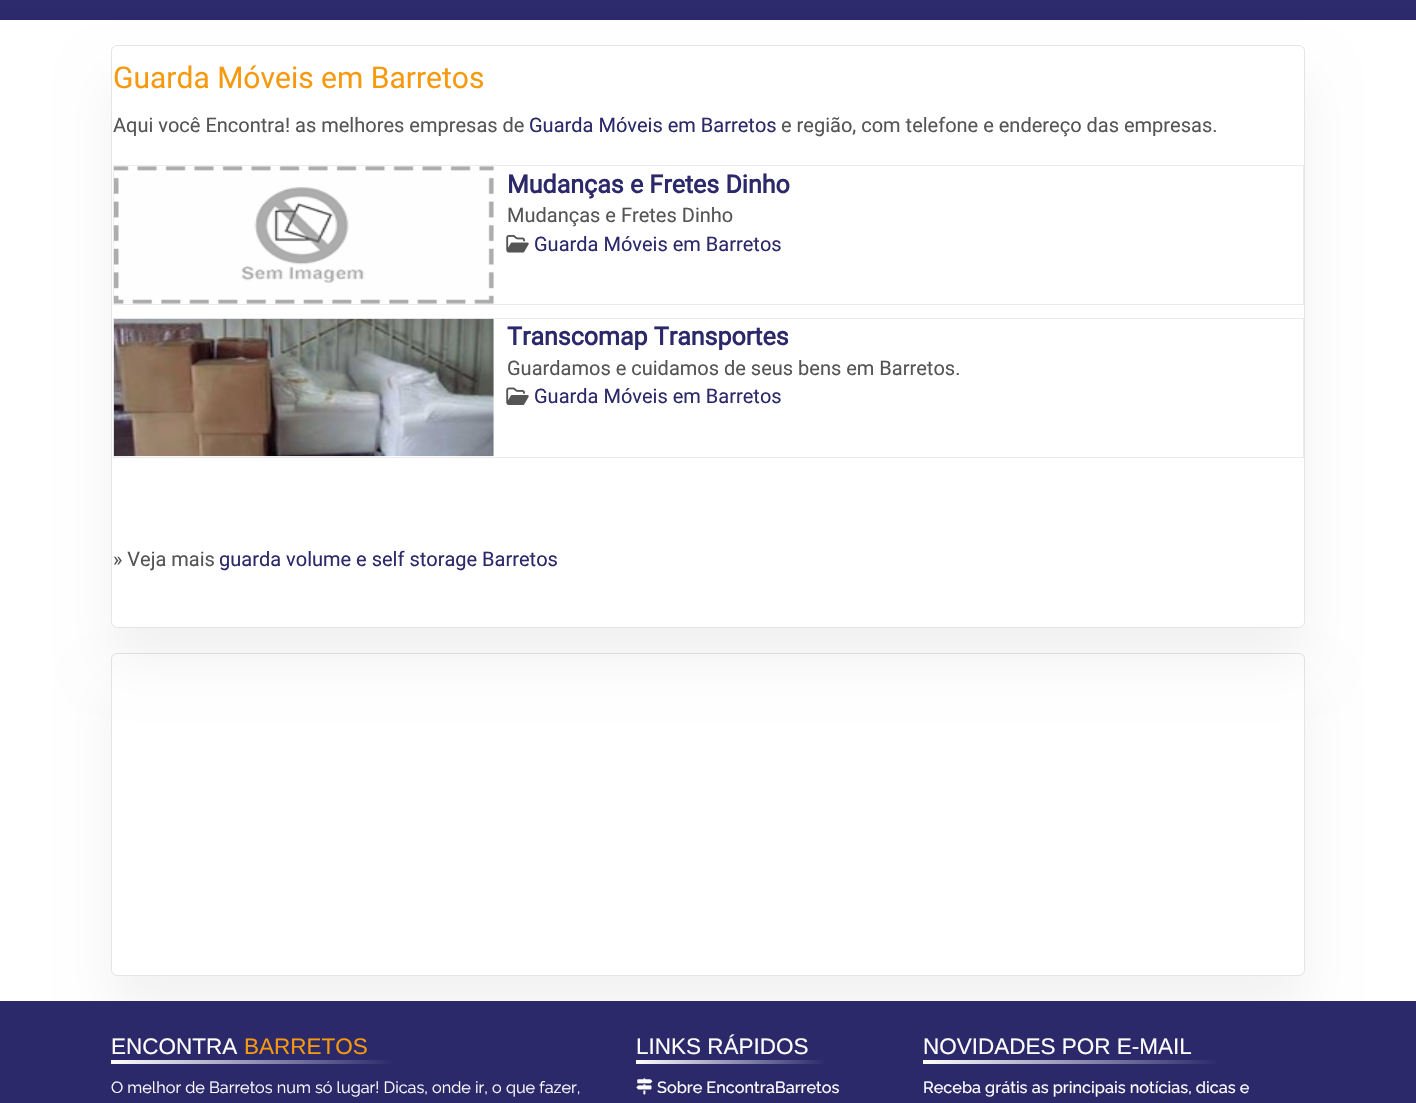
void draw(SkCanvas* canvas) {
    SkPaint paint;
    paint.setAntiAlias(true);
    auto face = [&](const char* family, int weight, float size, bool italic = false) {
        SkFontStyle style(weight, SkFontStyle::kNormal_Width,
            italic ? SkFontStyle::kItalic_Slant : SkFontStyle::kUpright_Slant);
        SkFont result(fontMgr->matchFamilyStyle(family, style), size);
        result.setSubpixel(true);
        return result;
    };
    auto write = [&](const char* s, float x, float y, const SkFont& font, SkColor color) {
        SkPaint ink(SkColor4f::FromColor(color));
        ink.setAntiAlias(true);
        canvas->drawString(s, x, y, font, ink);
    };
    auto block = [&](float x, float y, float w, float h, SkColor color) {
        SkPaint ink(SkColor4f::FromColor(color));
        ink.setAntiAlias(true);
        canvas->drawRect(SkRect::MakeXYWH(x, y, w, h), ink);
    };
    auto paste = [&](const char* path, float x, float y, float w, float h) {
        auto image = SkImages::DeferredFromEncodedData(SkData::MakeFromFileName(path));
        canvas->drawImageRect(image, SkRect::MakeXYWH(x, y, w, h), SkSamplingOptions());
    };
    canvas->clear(SK_ColorWHITE);
    canvas->save();
    canvas->clipPath(SkPathBuilder(SkPathFillType::kEvenOdd).moveTo(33, 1).lineTo(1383, 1).lineTo(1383, 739).lineTo(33, 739).close().moveTo(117, 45).lineTo(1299, 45).cubicTo(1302.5f, 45, 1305, 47.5f, 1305, 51).lineTo(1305, 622).cubicTo(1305, 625.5f, 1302.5f, 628, 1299, 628).lineTo(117, 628).cubicTo(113.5f, 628, 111, 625.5f, 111, 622).lineTo(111, 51).cubicTo(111, 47.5f, 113.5f, 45, 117, 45).close().detach(), true);
    paint.setColor(SkColorSetARGB(13, 0, 0, 0));
    paint.setMaskFilter(SkMaskFilter::MakeBlur(kNormal_SkBlurStyle, 25.5f));
    canvas->drawRoundRect(SkRect::MakeXYWH(111, 79, 1194, 582), 6, 6, paint);
    paint.setMaskFilter(nullptr);
    canvas->restore();
    {
        const SkColor colors[] = {SkColorSetRGB(58, 55, 143), SkColorSetRGB(43, 41, 106)};
        const float stops[] = {0, 1};
        const SkPoint ends[] = {{708, -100}, {708, 20}};
        paint.setShader(SkGradientShader::MakeLinear(ends, colors, stops, 2, SkTileMode::kClamp));
        paint.setAlpha(255);
    }
    canvas->drawRect(SkRect::MakeXYWH(0, 0, 1416, 20), paint);
    paint.setStyle(SkPaint::kStroke_Style);
    paint.setStrokeWidth(1);
    paint.setShader(nullptr);
    paint.setColor(SkColorSetARGB(26, 0, 0, 0));
    canvas->drawRoundRect(SkRect::MakeXYWH(111.5f, 45.5f, 1193, 582), 5.5f, 5.5f, paint);
    auto kFont1 = face("Roboto", 400, 30);
    write("Guarda Móveis em Barretos", 113, 88, kFont1, SkColorSetRGB(246, 153, 13));
    auto kFont2 = face("Roboto", 400, 20);
    write("Aqui você Encontra! as melhores empresas de", 113, 132, kFont2, SkColorSetRGB(85, 85, 85));
    write("Guarda Móveis em Barretos", 529, 132, kFont2, SkColorSetRGB(43, 41, 106));
    write("e região, com telefone e endereço das empresas.", 781, 132, kFont2, SkColorSetRGB(85, 85, 85));
    paint.setColor(SkColorSetRGB(234, 234, 240));
    canvas->drawRect(SkRect::MakeXYWH(113.5f, 165.5f, 1190, 139), paint);
    paste("pic1.png", 113, 166, 381, 138);
    auto kFont3 = face("Roboto", 700, 25);
    write("Mudanças e Fretes Dinho", 507, 193, kFont3, SkColorSetRGB(43, 41, 106));
    write("Mudanças e Fretes Dinho", 507, 222, kFont2, SkColorSetRGB(85, 85, 85));
    paste("pic2.png", 506, 235, 23, 18);
    write("Guarda Móveis em Barretos", 534, 251, kFont2, SkColorSetRGB(43, 41, 106));
    canvas->drawRect(SkRect::MakeXYWH(113.5f, 318.5f, 1190, 139), paint);
    paste("pic3.png", 113, 318, 381, 139);
    write("Transcomap Transportes", 507, 345, kFont3, SkColorSetRGB(43, 41, 106));
    write("Guardamos e cuidamos de seus bens em Barretos.", 507, 375, kFont2, SkColorSetRGB(85, 85, 85));
    paste("pic4.png", 506, 387, 23, 18);
    write("Guarda Móveis em Barretos", 534, 403, kFont2, SkColorSetRGB(43, 41, 106));
    write("» Veja mais", 113, 566, kFont2, SkColorSetRGB(85, 85, 85));
    write("guarda volume e self storage Barretos", 219, 566, kFont2, SkColorSetRGB(43, 41, 106));
    canvas->save();
    canvas->clipPath(SkPathBuilder(SkPathFillType::kEvenOdd).moveTo(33, 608).lineTo(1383, 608).lineTo(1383, 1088).lineTo(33, 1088).close().moveTo(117, 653).lineTo(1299, 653).cubicTo(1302.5f, 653, 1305, 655.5f, 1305, 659).lineTo(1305, 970).cubicTo(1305, 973.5f, 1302.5f, 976, 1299, 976).lineTo(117, 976).cubicTo(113.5f, 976, 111, 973.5f, 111, 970).lineTo(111, 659).cubicTo(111, 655.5f, 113.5f, 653, 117, 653).close().detach(), true);
    paint.setStyle(SkPaint::kFill_Style);
    paint.setColor(SkColorSetARGB(13, 0, 0, 0));
    paint.setMaskFilter(SkMaskFilter::MakeBlur(kNormal_SkBlurStyle, 25.5f));
    canvas->drawRoundRect(SkRect::MakeXYWH(111, 686, 1194, 324), 6, 6, paint);
    paint.setMaskFilter(nullptr);
    canvas->restore();
    paint.setStyle(SkPaint::kStroke_Style);
    paint.setColor(SkColorSetARGB(26, 0, 0, 0));
    canvas->drawRoundRect(SkRect::MakeXYWH(111.5f, 653.5f, 1193, 322), 5.5f, 5.5f, paint);
    block(0, 1001, 1416, 102, SkColorSetRGB(43, 41, 106));
    auto kFont4 = face("Liberation Sans", 400, 22.5f);
    write("ENCONTRA", 111, 1054, kFont4, SkColorSetRGB(254, 254, 254));
    write("BARRETOS", 244, 1054, kFont4, SkColorSetRGB(246, 153, 13));
    paint.setStyle(SkPaint::kFill_Style);
    {
        const SkColor colors[] = {SK_ColorWHITE, SkColorSetRGB(43, 41, 106)};
        const float stops[] = {0, 1};
        const SkPoint ends[] = {{111, 1062}, {394, 1062}};
        paint.setShader(SkGradientShader::MakeLinear(ends, colors, stops, 2, SkTileMode::kClamp));
        paint.setAlpha(255);
    }
    canvas->drawRect(SkRect::MakeXYWH(111, 1060, 283, 4), paint);
    auto kFont5 = face("Raleway", 400, 16.25f);
    write("O melhor de Barretos num só lugar! Dicas, onde ir, o que fazer,", 111, 1093, kFont5, SkColorSetRGB(254, 254, 254));
    write("LINKS RÁPIDOS", 636, 1054, kFont4, SkColorSetRGB(254, 254, 254));
    {
        const SkColor colors[] = {SK_ColorWHITE, SkColorSetRGB(43, 41, 106)};
        const float stops[] = {0, 1};
        const SkPoint ends[] = {{636, 1062}, {826, 1062}};
        paint.setShader(SkGradientShader::MakeLinear(ends, colors, stops, 2, SkTileMode::kClamp));
        paint.setAlpha(255);
    }
    canvas->drawRect(SkRect::MakeXYWH(636, 1060, 190, 4), paint);
    paste("pic5.png", 636, 1078, 17, 17);
    auto kFont6 = face("Raleway", 500, 16.25f);
    write("Sobre EncontraBarretos", 657, 1093, kFont6, SkColorSetRGB(254, 254, 254));
    write("NOVIDADES POR E-MAIL", 923, 1054, kFont4, SkColorSetRGB(254, 254, 254));
    {
        const SkColor colors[] = {SK_ColorWHITE, SkColorSetRGB(43, 41, 106)};
        const float stops[] = {0, 1};
        const SkPoint ends[] = {{923, 1062}, {1219, 1062}};
        paint.setShader(SkGradientShader::MakeLinear(ends, colors, stops, 2, SkTileMode::kClamp));
        paint.setAlpha(255);
    }
    canvas->drawRect(SkRect::MakeXYWH(923, 1060, 296, 4), paint);
    write("Receba grátis as principais notícias, dicas e", 923, 1093, kFont6, SkColorSetRGB(254, 254, 254));
}
